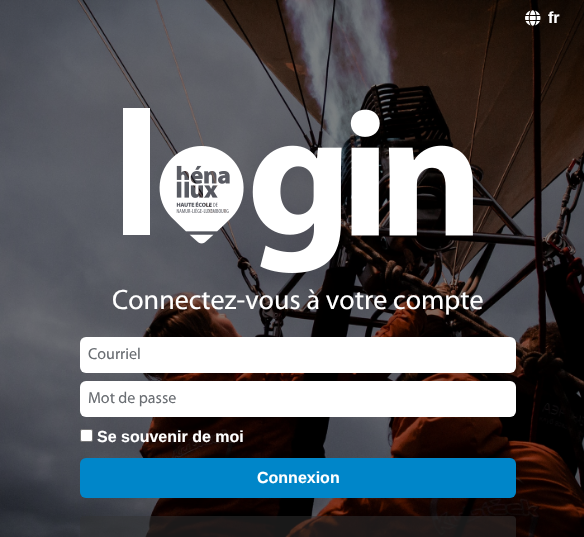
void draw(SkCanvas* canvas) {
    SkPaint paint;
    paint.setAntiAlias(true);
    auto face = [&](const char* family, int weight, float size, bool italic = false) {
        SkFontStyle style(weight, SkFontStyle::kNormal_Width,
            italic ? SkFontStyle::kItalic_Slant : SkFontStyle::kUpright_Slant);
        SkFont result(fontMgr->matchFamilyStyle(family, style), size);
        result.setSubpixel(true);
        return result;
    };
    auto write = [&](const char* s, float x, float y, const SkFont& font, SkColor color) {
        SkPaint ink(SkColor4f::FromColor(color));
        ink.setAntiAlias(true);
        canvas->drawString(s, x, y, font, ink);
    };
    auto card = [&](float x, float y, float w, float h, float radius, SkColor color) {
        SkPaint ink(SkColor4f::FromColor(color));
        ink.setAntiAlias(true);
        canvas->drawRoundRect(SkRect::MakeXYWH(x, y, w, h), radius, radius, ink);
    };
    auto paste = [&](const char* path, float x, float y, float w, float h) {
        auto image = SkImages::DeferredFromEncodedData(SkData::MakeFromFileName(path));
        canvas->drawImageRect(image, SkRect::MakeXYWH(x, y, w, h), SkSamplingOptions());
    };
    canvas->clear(SK_ColorWHITE);
    paste("pic1.png", 0, 0, 584, 537);
    paste("pic2.png", 525, 10, 16, 16);
    auto kFont1 = face("Liberation Sans", 700, 16);
    write("fr", 548, 23, kFont1, SK_ColorWHITE);
    paste("pic3.png", 123, 108, 350, 165);
    auto kFont2 = face("Myriad", 400, 28);
    write("Connectez-vous à votre compte", 112, 309, kFont2, SK_ColorWHITE);
    card(80, 337, 436, 36, 6, SK_ColorWHITE);
    auto kFont3 = face("Myriad", 400, 16);
    write("Courriel", 88, 359, kFont3, SkColorSetRGB(106, 110, 115));
    card(80, 381, 436, 36, 6, SK_ColorWHITE);
    write("Mot de passe", 88, 403, kFont3, SkColorSetRGB(106, 110, 115));
    paint.setColor(SK_ColorWHITE);
    canvas->drawRoundRect(SkRect::MakeXYWH(80.5f, 429.5f, 12, 12), 1.5f, 1.5f, paint);
    paint.setStyle(SkPaint::kStroke_Style);
    paint.setStrokeWidth(1);
    paint.setColor(SkColorSetRGB(118, 118, 118));
    canvas->drawRoundRect(SkRect::MakeXYWH(80.5f, 429.5f, 12, 12), 1.5f, 1.5f, paint);
    write("Se souvenir de moi", 97, 442, kFont1, SK_ColorWHITE);
    card(80, 458, 436, 40, 6, SkColorSetRGB(0, 134, 201));
    write("Connexion", 257, 483, kFont1, SK_ColorWHITE);
    card(80, 516, 436, 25, 4, SkColorSetARGB(128, 50, 50, 50));
}
